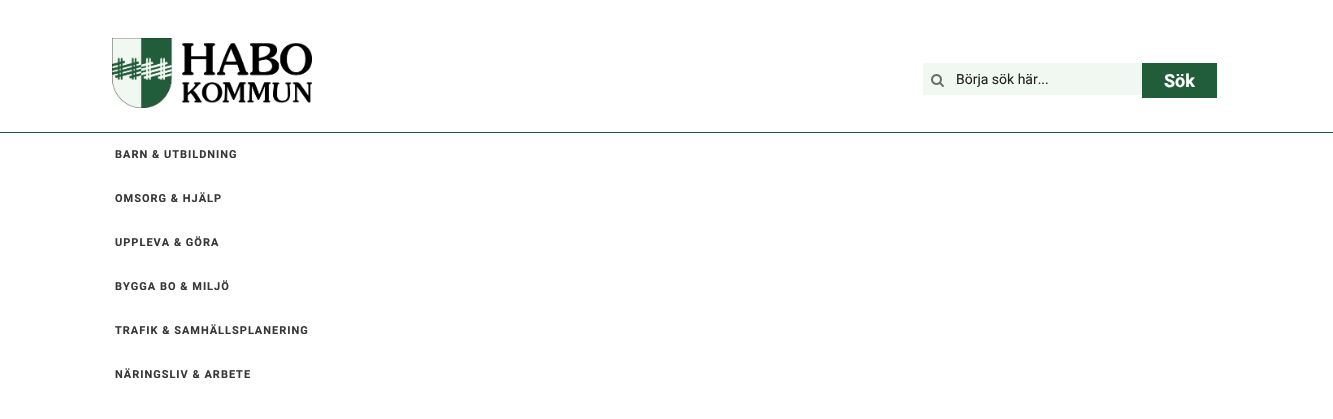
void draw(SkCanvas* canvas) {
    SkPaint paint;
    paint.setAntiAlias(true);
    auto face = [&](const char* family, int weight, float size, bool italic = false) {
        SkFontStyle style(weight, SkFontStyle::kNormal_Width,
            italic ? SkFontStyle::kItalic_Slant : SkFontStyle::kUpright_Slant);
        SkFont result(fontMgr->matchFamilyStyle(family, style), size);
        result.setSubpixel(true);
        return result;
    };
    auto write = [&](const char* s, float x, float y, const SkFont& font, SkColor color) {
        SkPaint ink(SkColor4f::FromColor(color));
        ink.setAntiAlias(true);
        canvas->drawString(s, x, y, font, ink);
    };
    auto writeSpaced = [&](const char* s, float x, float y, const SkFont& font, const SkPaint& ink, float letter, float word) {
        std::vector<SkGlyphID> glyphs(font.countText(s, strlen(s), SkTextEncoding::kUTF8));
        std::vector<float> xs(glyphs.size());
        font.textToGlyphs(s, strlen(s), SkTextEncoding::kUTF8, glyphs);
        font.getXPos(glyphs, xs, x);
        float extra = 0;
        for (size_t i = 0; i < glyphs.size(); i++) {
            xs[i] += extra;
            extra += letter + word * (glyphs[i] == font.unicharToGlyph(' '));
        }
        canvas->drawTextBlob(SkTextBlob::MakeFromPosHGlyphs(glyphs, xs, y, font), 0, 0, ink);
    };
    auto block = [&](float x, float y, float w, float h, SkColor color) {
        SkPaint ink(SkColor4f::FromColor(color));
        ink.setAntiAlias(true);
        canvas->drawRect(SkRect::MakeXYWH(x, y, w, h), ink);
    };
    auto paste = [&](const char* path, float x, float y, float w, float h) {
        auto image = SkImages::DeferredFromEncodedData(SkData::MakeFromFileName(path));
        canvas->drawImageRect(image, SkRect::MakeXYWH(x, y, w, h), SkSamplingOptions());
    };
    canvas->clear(SK_ColorWHITE);
    paste("pic1.png", 112, 38, 200, 70);
    block(923, 63, 219, 32, SkColorSetRGB(241, 248, 242));
    paste("pic2.png", 931, 74, 13, 13);
    auto kFont1 = face("Roboto", 400, 14);
    write("Börja sök här...", 956, 84, kFont1, SkColorSetRGB(37, 37, 37));
    block(1142, 63, 75, 35, SkColorSetRGB(34, 93, 57));
    auto kFont2 = face("Roboto", 700, 18);
    write("Sök", 1164, 87, kFont2, SK_ColorWHITE);
    block(0, 132, 1333, 1, SkColorSetRGB(34, 93, 57));
    auto kFont3 = face("Roboto", 700, 11);
    paint.setColor(SkColorSetRGB(55, 55, 55));
    writeSpaced("BARN & UTBILDNING", 115, 158, kFont3, paint, 1, 0);
    writeSpaced("OMSORG & HJÄLP", 115, 202, kFont3, paint, 1, 0);
    writeSpaced("UPPLEVA & GÖRA", 115, 246, kFont3, paint, 1, 0);
    writeSpaced("BYGGA BO & MILJÖ", 115, 290, kFont3, paint, 1, 0);
    writeSpaced("TRAFIK & SAMHÄLLSPLANERING", 115, 334, kFont3, paint, 1, 0);
    writeSpaced("NÄRINGSLIV & ARBETE", 115, 378, kFont3, paint, 1, 0);
}
